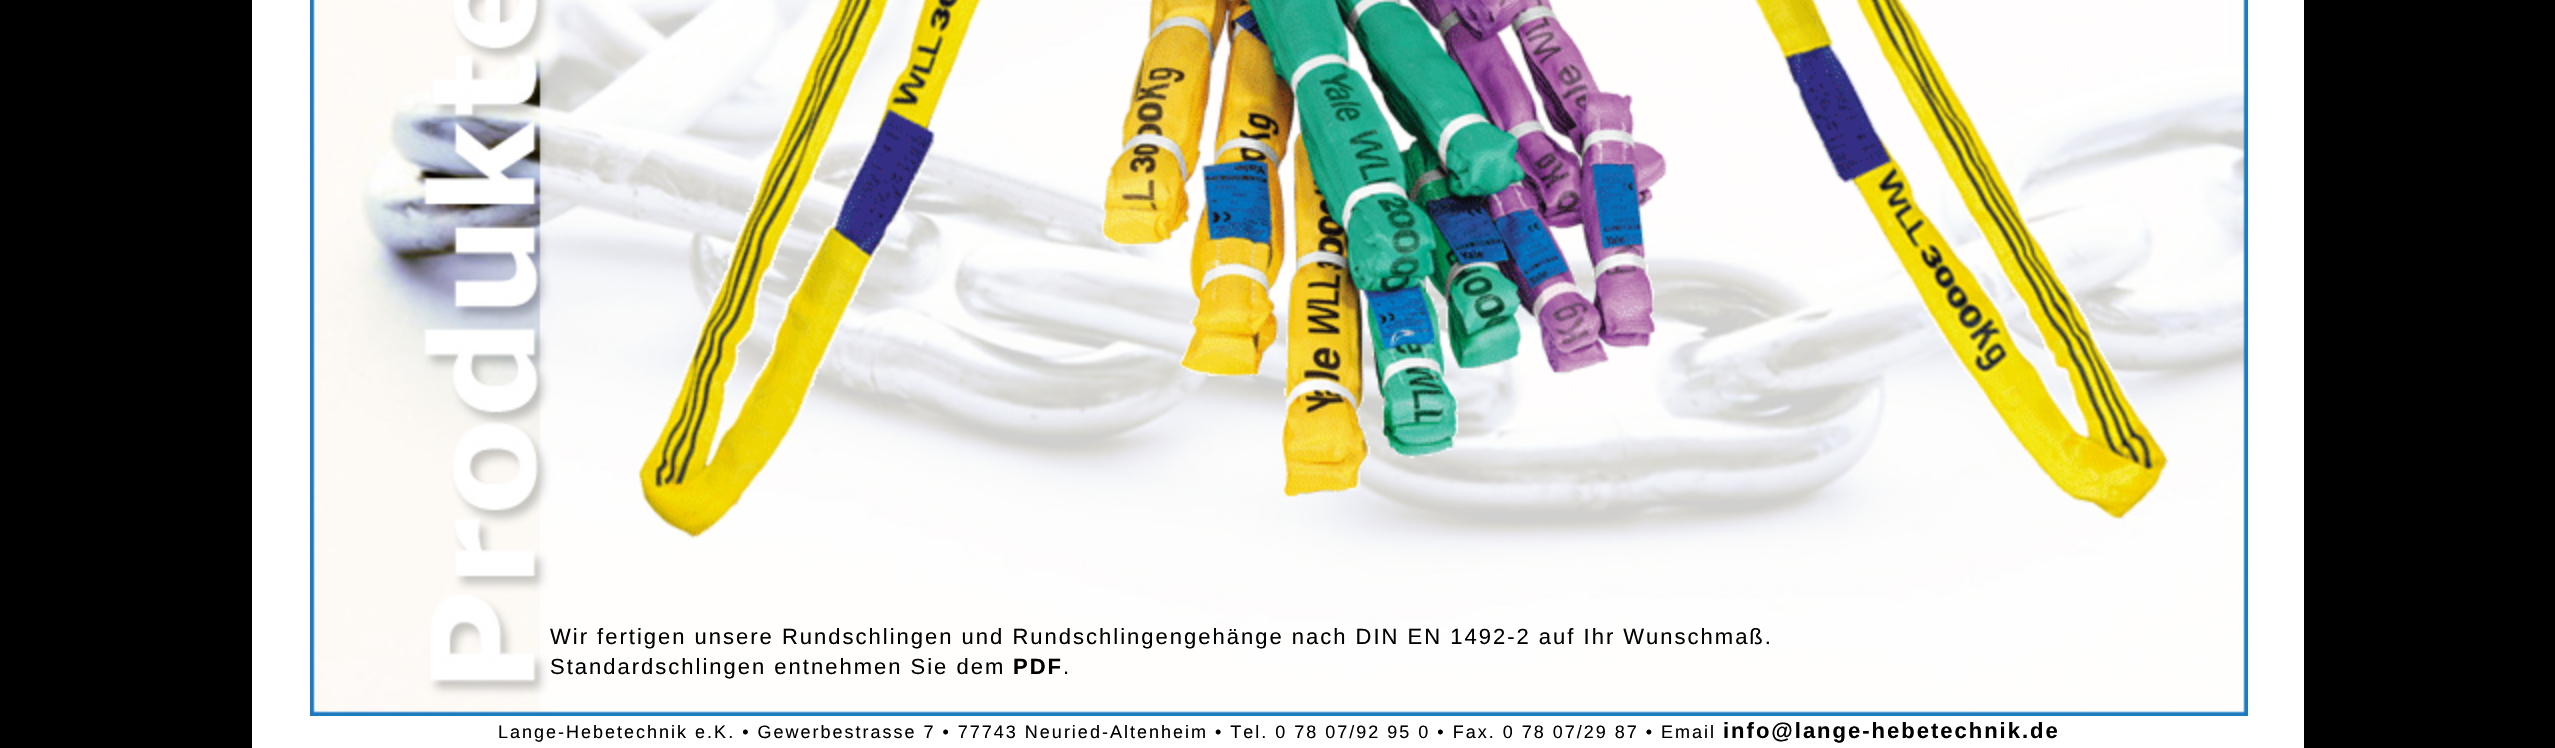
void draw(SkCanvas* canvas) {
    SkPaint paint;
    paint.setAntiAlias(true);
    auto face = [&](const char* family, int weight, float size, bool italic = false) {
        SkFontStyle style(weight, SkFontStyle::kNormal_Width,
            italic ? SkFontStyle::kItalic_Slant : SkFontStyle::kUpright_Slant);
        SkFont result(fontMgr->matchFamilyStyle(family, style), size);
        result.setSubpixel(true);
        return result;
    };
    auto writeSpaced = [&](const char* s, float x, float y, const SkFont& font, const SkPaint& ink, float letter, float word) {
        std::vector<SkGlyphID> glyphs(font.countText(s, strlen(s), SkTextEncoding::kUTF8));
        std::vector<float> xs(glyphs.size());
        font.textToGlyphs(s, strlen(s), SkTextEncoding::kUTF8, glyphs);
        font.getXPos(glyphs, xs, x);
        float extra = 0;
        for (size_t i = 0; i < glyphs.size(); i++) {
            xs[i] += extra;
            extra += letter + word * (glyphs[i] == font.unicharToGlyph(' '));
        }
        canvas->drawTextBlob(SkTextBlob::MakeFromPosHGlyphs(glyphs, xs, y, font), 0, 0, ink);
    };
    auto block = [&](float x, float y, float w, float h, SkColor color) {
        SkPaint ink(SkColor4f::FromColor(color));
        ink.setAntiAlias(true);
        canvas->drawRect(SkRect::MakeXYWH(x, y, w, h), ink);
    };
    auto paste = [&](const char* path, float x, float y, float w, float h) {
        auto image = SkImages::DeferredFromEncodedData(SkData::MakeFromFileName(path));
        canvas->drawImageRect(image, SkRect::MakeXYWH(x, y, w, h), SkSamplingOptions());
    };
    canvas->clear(SK_ColorBLACK);
    block(252, 0, 2052, 748, SK_ColorWHITE);
    paste("pic1.png", 310, 0, 1938, 716);
    paste("pic2.png", 637, 0, 1532, 539);
    auto kFont1 = face("Liberation Sans", 400, 22);
    paint.setColor(SK_ColorBLACK);
    writeSpaced("Wir fertigen unsere Rundschlingen und Rundschlingengehänge nach DIN EN 1492-2 auf Ihr Wunschmaß.", 550, 644, kFont1, paint, 2, 0);
    writeSpaced("Standardschlingen entnehmen Sie dem", 550, 674, kFont1, paint, 2, 0);
    auto kFont2 = face("Liberation Sans", 700, 22);
    writeSpaced("PDF", 1013, 674, kFont2, paint, 2, 0);
    writeSpaced(".", 1063, 674, kFont1, paint, 2, 0);
    auto kFont3 = face("Liberation Sans", 400, 18);
    writeSpaced("Lange-Hebetechnik e.K. • Gewerbestrasse 7 • 77743 Neuried-Altenheim • Tel. 0 78 07/92 95 0 • Fax. 0 78 07/29 87 • Email", 498, 738, kFont3, paint, 2, 0);
    writeSpaced("info@lange-hebetechnik.de", 1723, 738, kFont2, paint, 2, 0);
}
